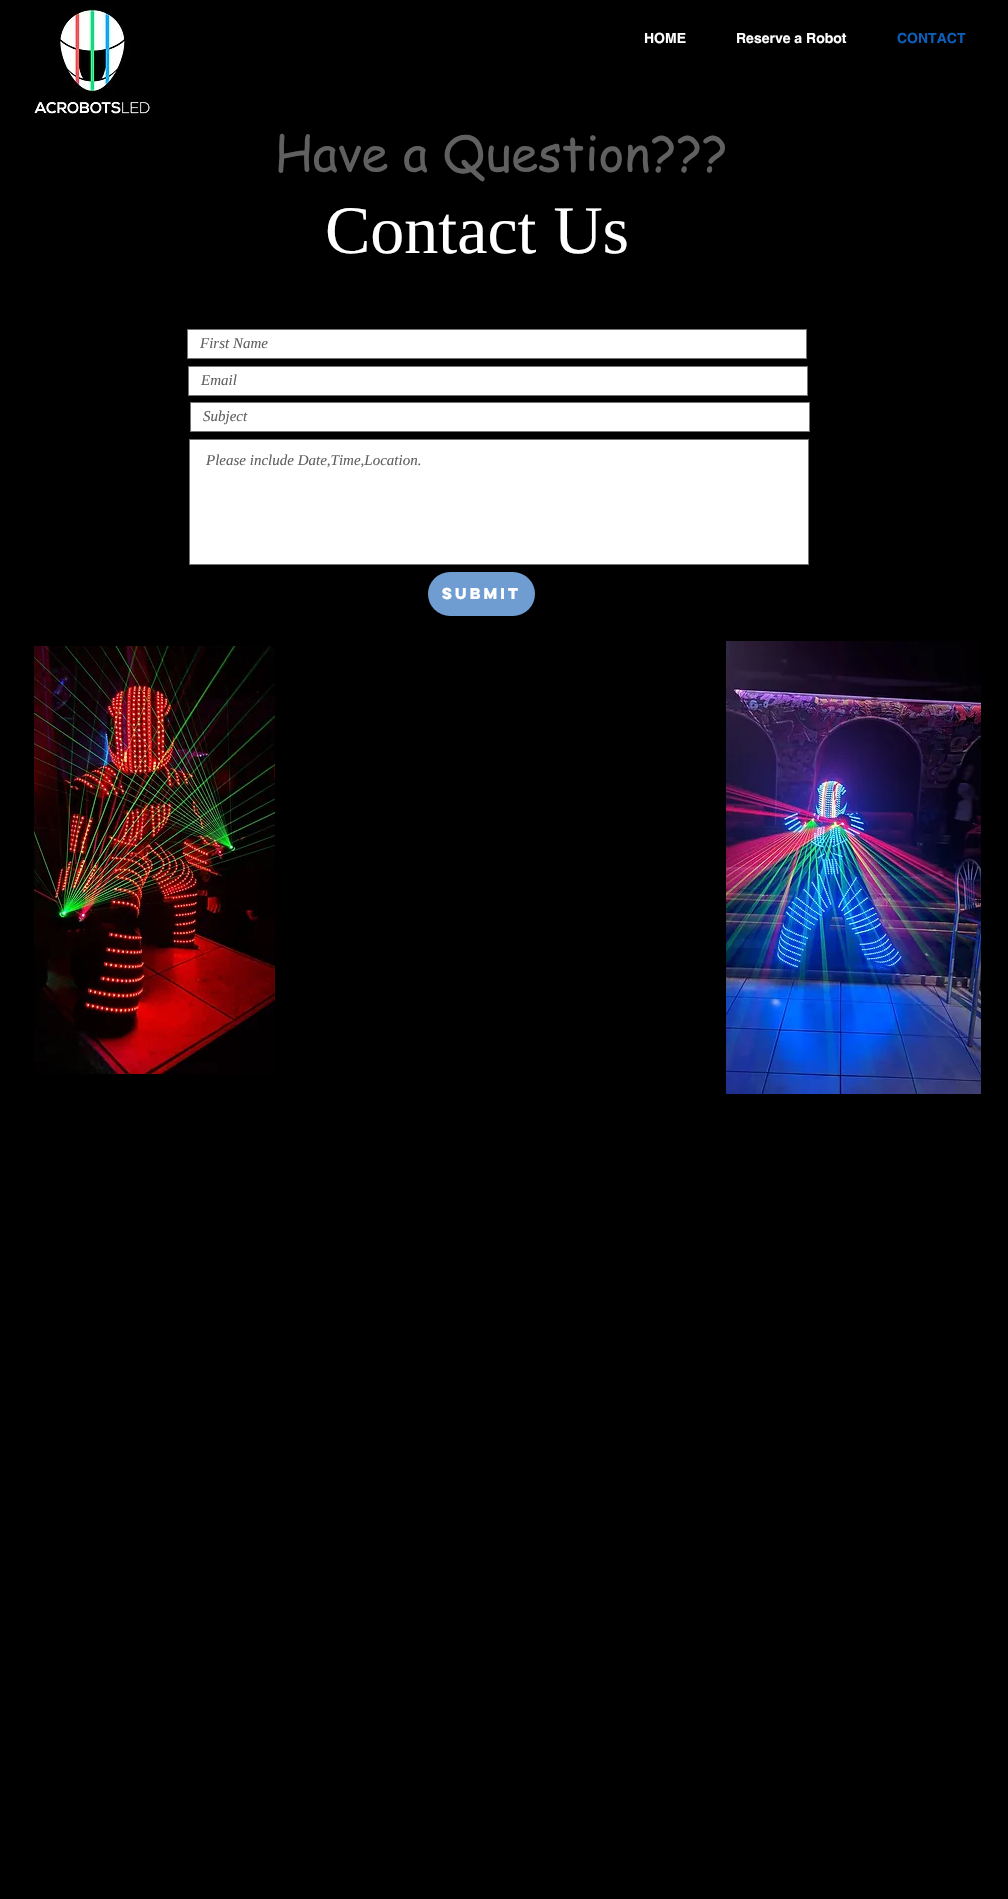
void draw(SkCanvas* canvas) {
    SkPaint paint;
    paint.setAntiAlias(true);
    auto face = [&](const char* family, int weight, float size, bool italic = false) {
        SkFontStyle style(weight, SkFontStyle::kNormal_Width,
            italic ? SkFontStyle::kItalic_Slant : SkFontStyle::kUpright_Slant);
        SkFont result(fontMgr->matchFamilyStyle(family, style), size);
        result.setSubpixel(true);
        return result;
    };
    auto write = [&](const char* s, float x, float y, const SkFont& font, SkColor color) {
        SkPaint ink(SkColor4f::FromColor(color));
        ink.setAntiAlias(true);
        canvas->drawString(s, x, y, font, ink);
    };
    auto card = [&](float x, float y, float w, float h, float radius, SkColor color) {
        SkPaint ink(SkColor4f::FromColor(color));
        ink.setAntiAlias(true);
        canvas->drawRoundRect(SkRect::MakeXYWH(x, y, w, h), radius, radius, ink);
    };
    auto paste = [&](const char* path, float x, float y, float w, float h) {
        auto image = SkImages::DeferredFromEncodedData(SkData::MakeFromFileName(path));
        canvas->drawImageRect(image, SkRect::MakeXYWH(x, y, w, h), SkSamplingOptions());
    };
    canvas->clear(SK_ColorBLACK);
    paste("pic1.png", 32, 5, 120, 112);
    auto kFont1 = face("helvetica", 700, 14);
    write("HOME", 644, 43, kFont1, SK_ColorWHITE);
    write("Reserve a Robot", 736, 43, kFont1, SK_ColorWHITE);
    write("CONTACT", 897, 43, kFont1, SkColorSetRGB(13, 94, 186));
    auto kFont2 = face("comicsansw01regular", 400, 49);
    write("Have a Question?\077?", 275, 171, kFont2, SkColorSetRGB(96, 96, 96));
    auto kFont3 = face("Liberation Serif", 400, 68);
    write("Contact Us", 325, 253, kFont3, SK_ColorWHITE);
    paint.setColor(SK_ColorWHITE);
    canvas->drawRect(SkRect::MakeXYWH(187.5f, 329.5f, 619, 29), paint);
    paint.setStyle(SkPaint::kStroke_Style);
    paint.setStrokeWidth(1);
    paint.setColor(SkColorSetRGB(115, 115, 115));
    canvas->drawRect(SkRect::MakeXYWH(187.5f, 329.5f, 619, 29), paint);
    auto kFont4 = face("Liberation Serif", 400, 15, true);
    write("First Name", 200, 348, kFont4, SkColorSetRGB(96, 96, 96));
    paint.setStyle(SkPaint::kFill_Style);
    paint.setColor(SK_ColorWHITE);
    canvas->drawRect(SkRect::MakeXYWH(188.5f, 366.5f, 619, 29), paint);
    paint.setStyle(SkPaint::kStroke_Style);
    paint.setColor(SkColorSetRGB(115, 115, 115));
    canvas->drawRect(SkRect::MakeXYWH(188.5f, 366.5f, 619, 29), paint);
    write("Email", 201, 385, kFont4, SkColorSetRGB(96, 96, 96));
    paint.setStyle(SkPaint::kFill_Style);
    paint.setColor(SK_ColorWHITE);
    canvas->drawRect(SkRect::MakeXYWH(190.5f, 402.5f, 619, 29), paint);
    paint.setStyle(SkPaint::kStroke_Style);
    paint.setColor(SkColorSetRGB(115, 115, 115));
    canvas->drawRect(SkRect::MakeXYWH(190.5f, 402.5f, 619, 29), paint);
    write("Subject", 203, 421, kFont4, SkColorSetRGB(96, 96, 96));
    paint.setStyle(SkPaint::kFill_Style);
    paint.setColor(SK_ColorWHITE);
    canvas->drawRect(SkRect::MakeXYWH(189.5f, 439.5f, 619, 125), paint);
    paint.setStyle(SkPaint::kStroke_Style);
    paint.setColor(SkColorSetRGB(115, 115, 115));
    canvas->drawRect(SkRect::MakeXYWH(189.5f, 439.5f, 619, 125), paint);
    write("Please include Date,Time,Location.", 206, 465, kFont4, SkColorSetRGB(96, 96, 96));
    card(428, 572, 107, 44, 22, SkColorSetRGB(112, 157, 209));
    auto kFont5 = face("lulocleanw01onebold", 700, 14);
    write("Submit", 442, 599, kFont5, SK_ColorWHITE);
    paste("pic2.png", 34, 646, 241, 428);
    paste("pic3.png", 726, 641, 255, 453);
}
